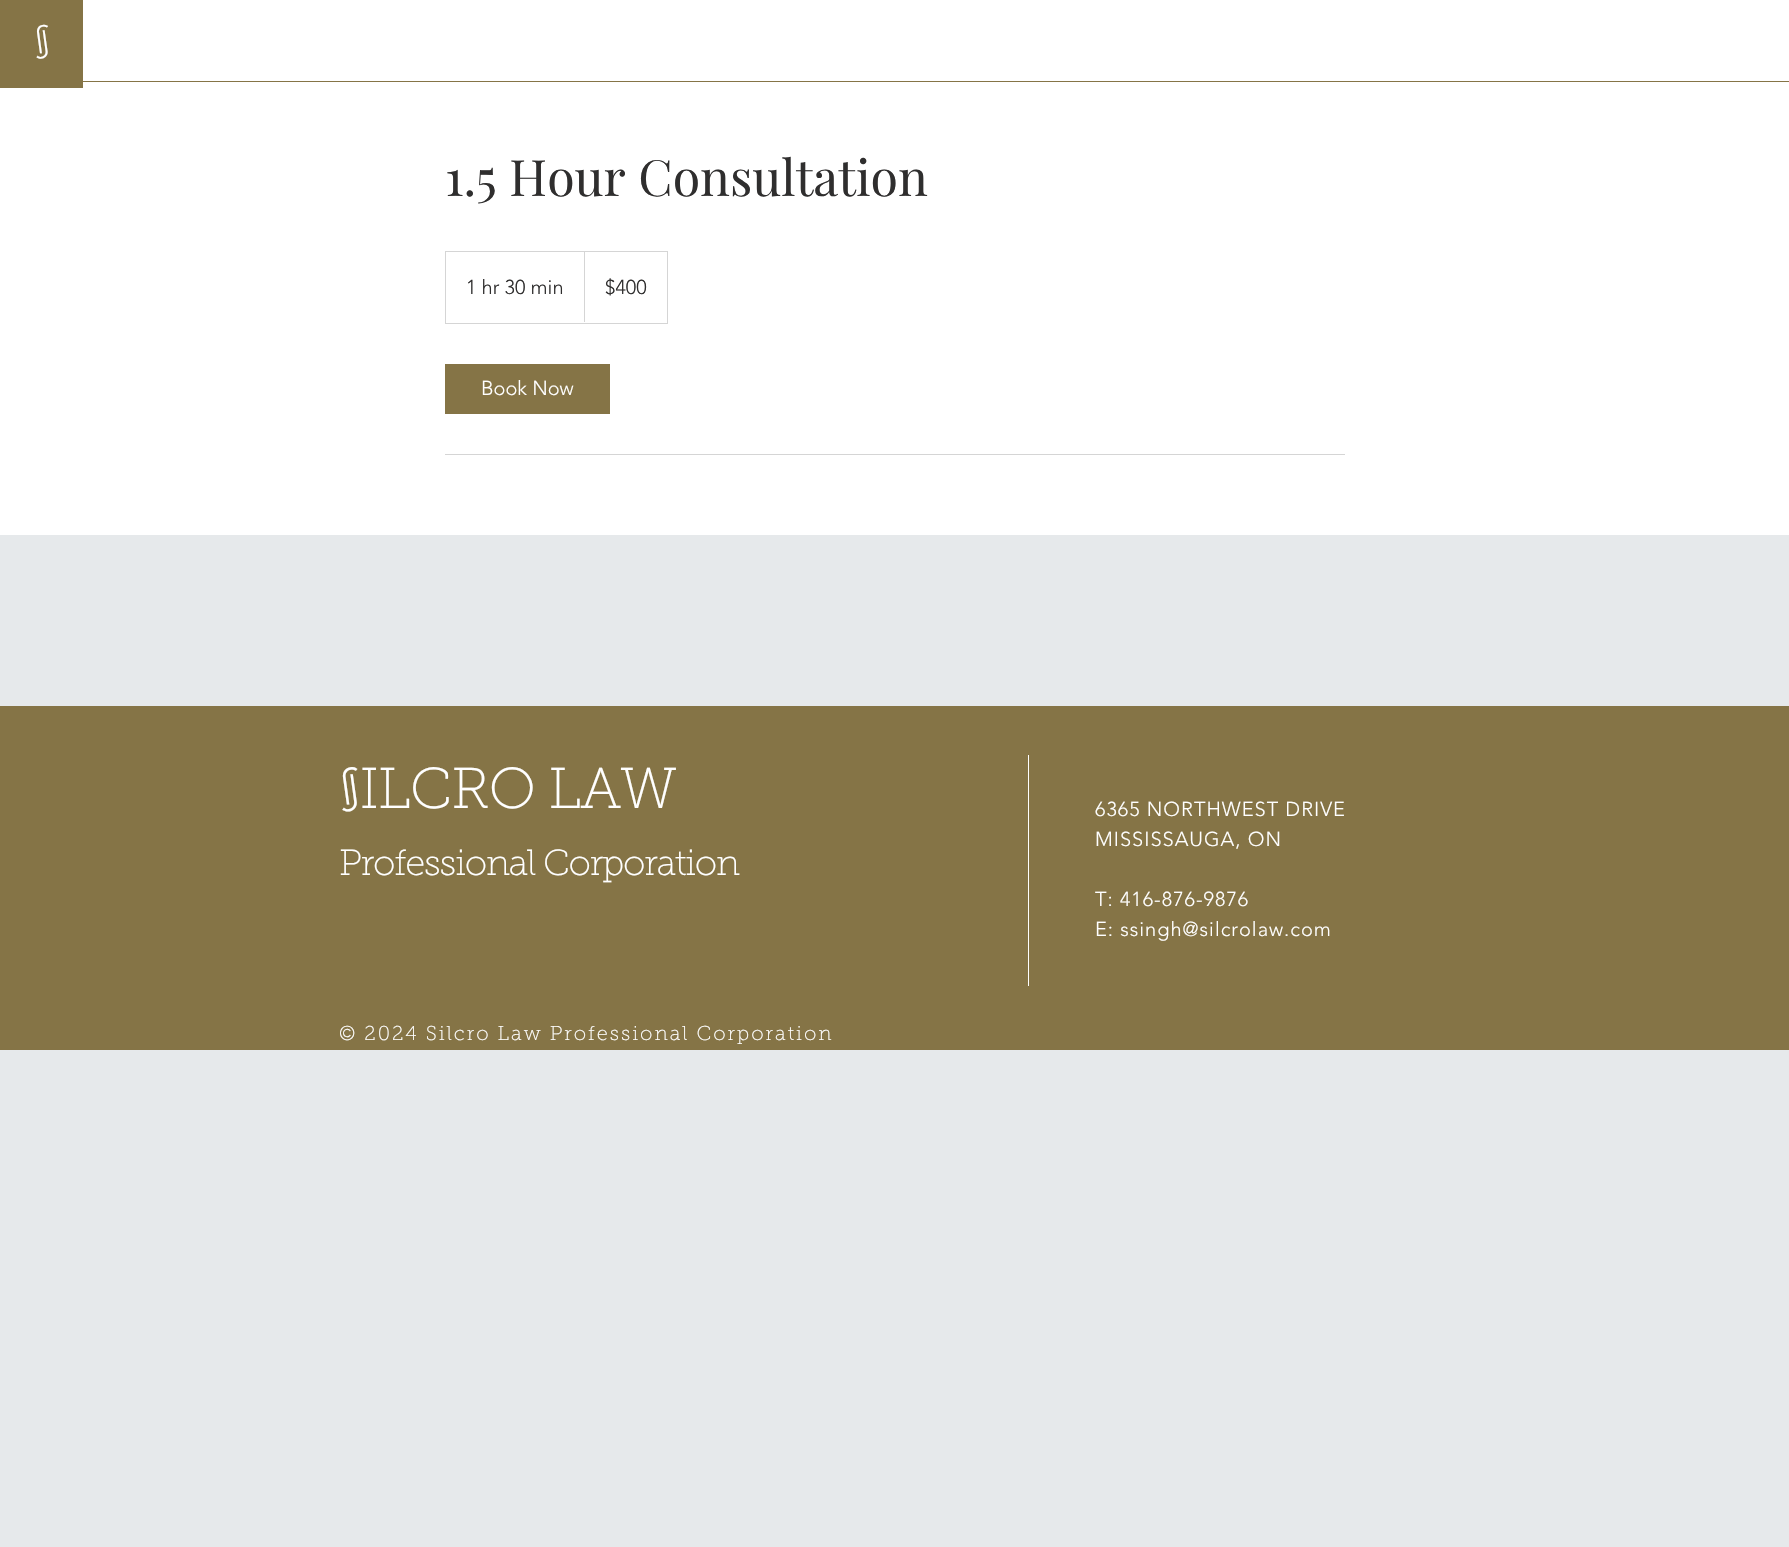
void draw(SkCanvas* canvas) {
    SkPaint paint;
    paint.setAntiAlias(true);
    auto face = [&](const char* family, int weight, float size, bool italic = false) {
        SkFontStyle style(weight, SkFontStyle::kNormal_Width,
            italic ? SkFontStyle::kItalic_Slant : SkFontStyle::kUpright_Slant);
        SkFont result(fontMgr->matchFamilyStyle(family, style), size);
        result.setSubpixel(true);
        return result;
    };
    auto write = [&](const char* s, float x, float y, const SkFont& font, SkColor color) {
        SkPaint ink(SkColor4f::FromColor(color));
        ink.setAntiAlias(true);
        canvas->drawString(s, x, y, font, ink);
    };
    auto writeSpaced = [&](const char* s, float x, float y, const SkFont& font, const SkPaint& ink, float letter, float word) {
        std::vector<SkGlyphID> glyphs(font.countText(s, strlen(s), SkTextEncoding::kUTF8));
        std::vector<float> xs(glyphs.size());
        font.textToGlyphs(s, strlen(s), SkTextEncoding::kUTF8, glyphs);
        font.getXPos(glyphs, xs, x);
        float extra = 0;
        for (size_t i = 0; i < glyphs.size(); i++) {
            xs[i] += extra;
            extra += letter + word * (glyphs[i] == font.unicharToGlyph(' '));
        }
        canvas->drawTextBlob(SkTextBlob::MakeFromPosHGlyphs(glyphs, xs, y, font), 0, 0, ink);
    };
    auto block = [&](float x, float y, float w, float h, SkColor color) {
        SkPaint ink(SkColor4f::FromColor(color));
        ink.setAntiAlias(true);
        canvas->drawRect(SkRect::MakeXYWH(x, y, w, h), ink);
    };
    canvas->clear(SkColorSetRGB(230, 233, 235));
    block(0, 82, 1789, 453, SK_ColorWHITE);
    block(0, 0, 83, 88, SkColorSetRGB(133, 116, 70));
    auto kFont1 = face("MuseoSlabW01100", 100, 44);
    write("§", 34, 56, kFont1, SK_ColorWHITE);
    block(83, 0, 1706, 81, SK_ColorWHITE);
    block(83, 81, 1706, 1, SkColorSetRGB(133, 116, 70));
    auto kFont2 = face("Playfair Display", 400, 50);
    write("1.5 Hour Consultation", 445, 196, kFont2, SkColorSetRGB(47, 46, 46));
    paint.setStyle(SkPaint::kStroke_Style);
    paint.setStrokeWidth(1);
    paint.setColor(SkColorSetRGB(213, 213, 213));
    canvas->drawRect(SkRect::MakeXYWH(445.5f, 251.5f, 222, 72), paint);
    auto kFont3 = face("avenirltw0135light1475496", 300, 20);
    write("1 hr 30 min", 466, 294, kFont3, SkColorSetRGB(47, 46, 46));
    paint.setStyle(SkPaint::kFill_Style);
    canvas->drawPath(SkPathBuilder().moveTo(584, 322).lineTo(584, 251).lineTo(585, 252).lineTo(585, 322).close().detach(), paint);
    write("$400", 605, 294, kFont3, SkColorSetRGB(47, 46, 46));
    block(445, 364, 165, 50, SkColorSetRGB(133, 116, 70));
    write("Book Now", 481, 395, kFont3, SK_ColorWHITE);
    block(445, 454, 900, 1, SkColorSetRGB(213, 213, 213));
    block(0, 706, 1789, 344, SkColorSetRGB(133, 116, 70));
    auto kFont4 = face("MuseoSlabW01100", 100, 57.5f);
    paint.setColor(SK_ColorWHITE);
    writeSpaced("§ILCRO LAW", 339, 808, kFont4, paint, -1.15f, 0);
    auto kFont5 = face("MuseoSlabW01100", 100, 36.25f);
    writeSpaced("Professional Corporation", 339, 875, kFont5, paint, -1.15f, 0);
    block(1028, 755, 1, 231, SK_ColorWHITE);
    writeSpaced("6365 NORTHWEST DRIVE", 1095, 816, kFont3, paint, 1, 0);
    writeSpaced("MISSISSAUGA, ON", 1095, 846, kFont3, paint, 1, 0);
    writeSpaced("T: 416-876-9876", 1095, 906, kFont3, paint, 1, 0);
    writeSpaced("E: ssingh@silcrolaw.com", 1095, 936, kFont3, paint, 1, 0);
    auto kFont6 = face("MuseoSlabW01100", 100, 20);
    writeSpaced("© 2024 Silcro Law Professional Corporation", 339, 1040, kFont6, paint, 2, 0);
}
